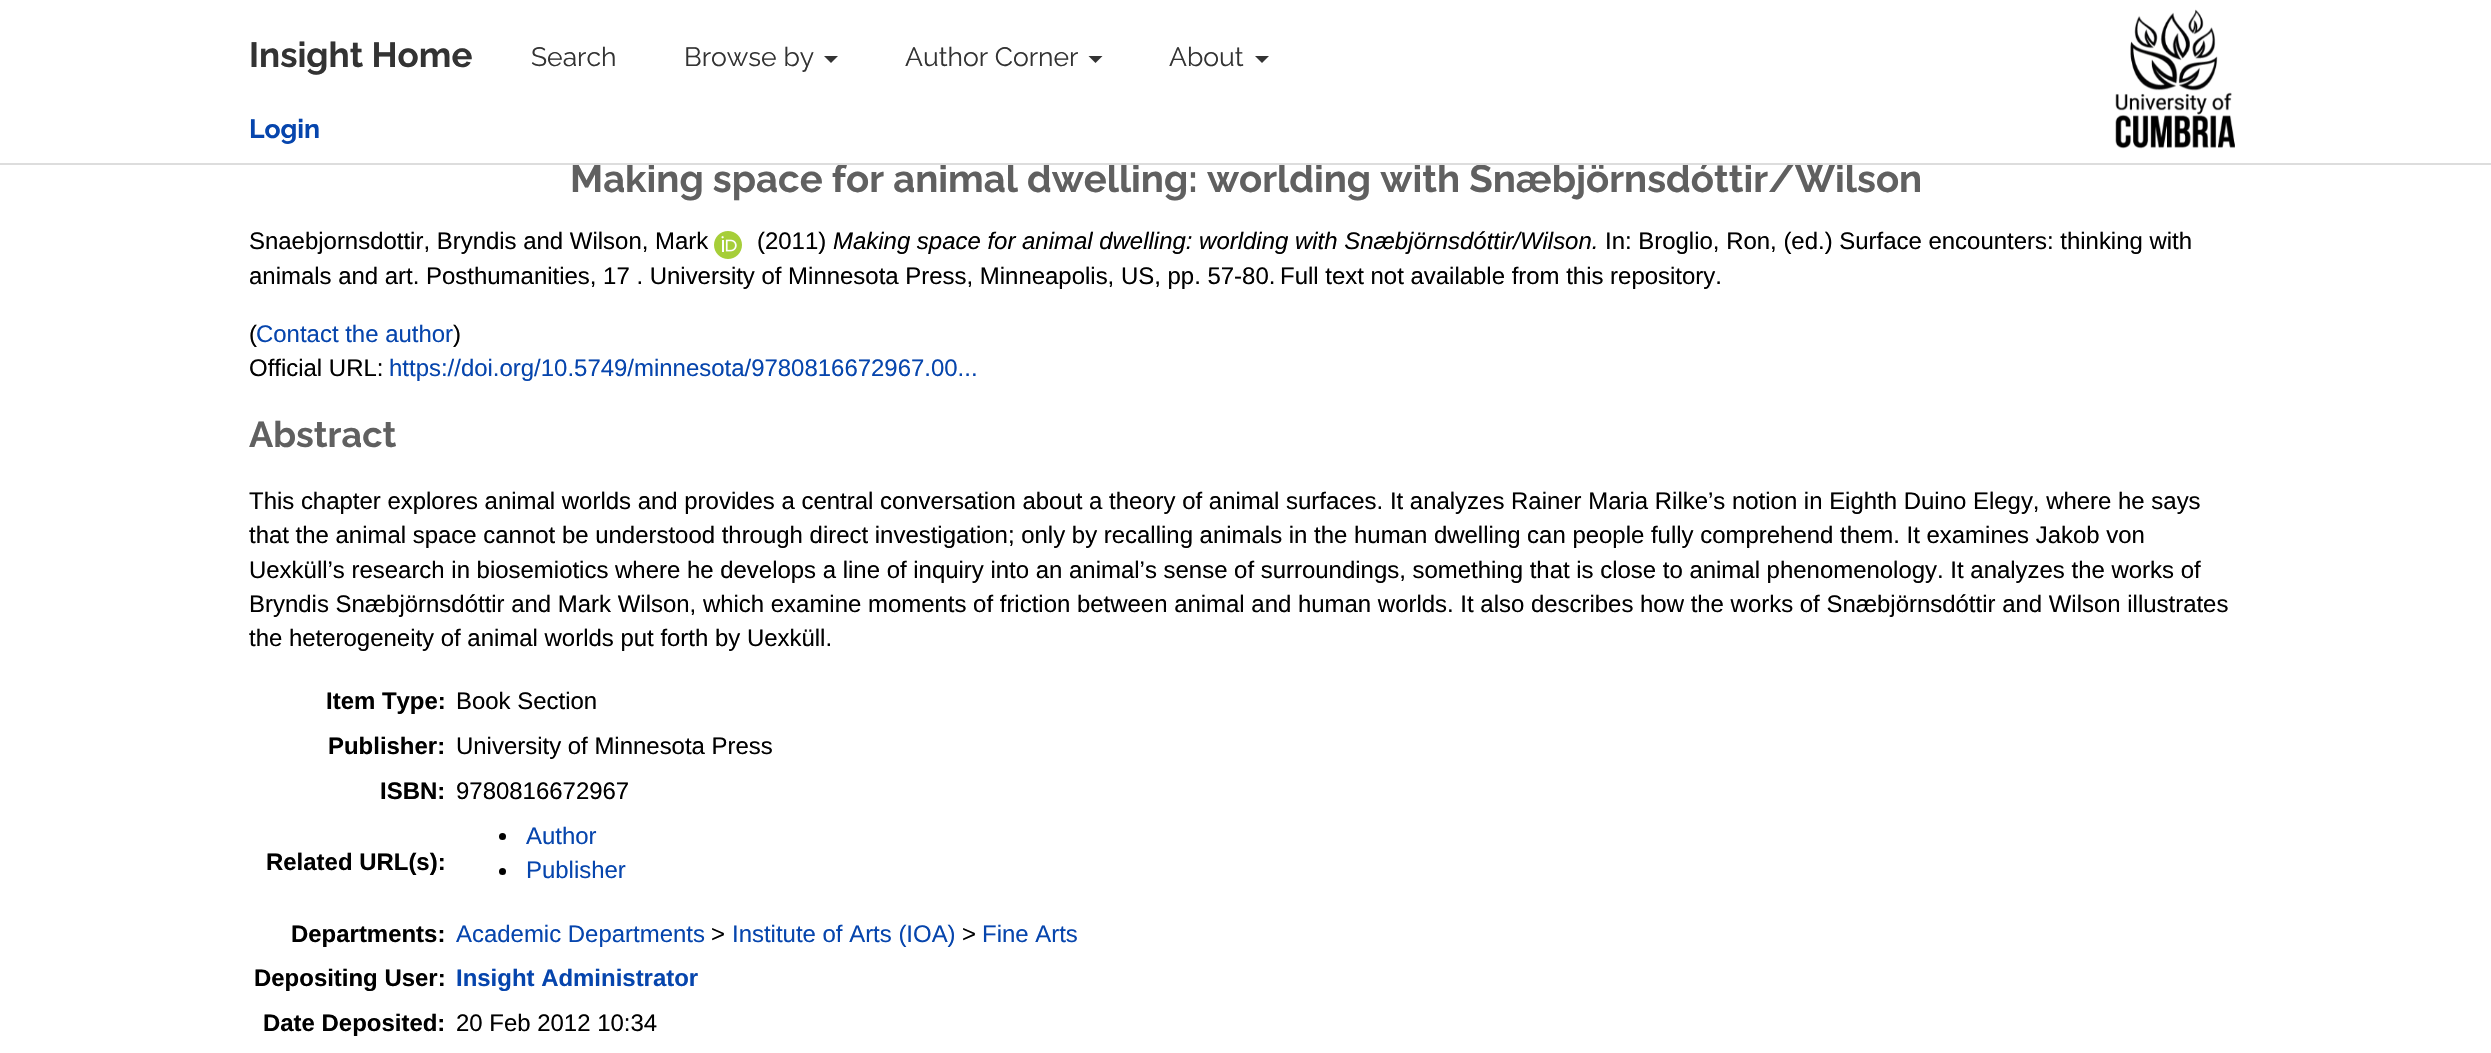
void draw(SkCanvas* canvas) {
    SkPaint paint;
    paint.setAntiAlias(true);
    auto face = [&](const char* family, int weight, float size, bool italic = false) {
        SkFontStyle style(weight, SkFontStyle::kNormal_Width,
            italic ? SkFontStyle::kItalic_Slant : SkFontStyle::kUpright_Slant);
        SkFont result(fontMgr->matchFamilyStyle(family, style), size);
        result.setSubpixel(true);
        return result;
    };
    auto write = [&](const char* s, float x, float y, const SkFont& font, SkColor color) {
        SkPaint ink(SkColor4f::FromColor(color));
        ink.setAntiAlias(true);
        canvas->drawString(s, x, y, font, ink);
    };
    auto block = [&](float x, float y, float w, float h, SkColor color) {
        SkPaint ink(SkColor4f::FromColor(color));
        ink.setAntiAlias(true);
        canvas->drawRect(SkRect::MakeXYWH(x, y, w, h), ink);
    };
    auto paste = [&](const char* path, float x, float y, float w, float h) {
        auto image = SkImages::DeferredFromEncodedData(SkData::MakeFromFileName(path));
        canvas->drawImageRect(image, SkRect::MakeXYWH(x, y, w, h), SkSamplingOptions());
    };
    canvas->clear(SK_ColorWHITE);
    auto kFont1 = face("Raleway", 700, 38.3f);
    write("Making space for animal dwelling: worlding with Snæbjörnsdóttir/Wilson", 570, 192, kFont1, SkColorSetRGB(96, 96, 96));
    block(0, 163, 2491, 2, SkColorSetRGB(221, 221, 221));
    auto kFont2 = face("Raleway", 700, 35);
    write("Insight Home", 249, 67, kFont2, SkColorSetRGB(51, 51, 51));
    auto kFont3 = face("Raleway", 400, 26.5f);
    write("Search", 531, 66, kFont3, SkColorSetRGB(51, 51, 51));
    write("Browse by", 684, 66, kFont3, SkColorSetRGB(51, 51, 51));
    paint.setColor(SkColorSetRGB(51, 51, 51));
    canvas->drawPath(SkPathBuilder().moveTo(824, 56).lineTo(838, 56).lineTo(831, 63).close().detach(), paint);
    write("Author Corner", 905, 66, kFont3, SkColorSetRGB(51, 51, 51));
    canvas->drawPath(SkPathBuilder().moveTo(1088.5f, 56).lineTo(1102.5f, 56).lineTo(1095.5f, 63).close().detach(), paint);
    write("About", 1169, 66, kFont3, SkColorSetRGB(51, 51, 51));
    canvas->drawPath(SkPathBuilder().moveTo(1255, 56).lineTo(1269, 56).lineTo(1262, 63).close().detach(), paint);
    auto kFont4 = face("Raleway", 700, 26.5f);
    write("Login", 249, 138, kFont4, SkColorSetRGB(6, 69, 173));
    paste("pic1.png", 2115, 9, 120, 140);
    auto kFont5 = face("Liberation Sans", 400, 23.95f);
    write("Snaebjornsdottir, Bryndis and Wilson, Mark", 249, 249, kFont5, SK_ColorBLACK);
    paste("pic2.png", 714, 231, 28, 28);
    write("(2011)", 757, 249, kFont5, SK_ColorBLACK);
    auto kFont6 = face("Liberation Sans", 400, 23.95f, true);
    write("Making space for animal dwelling: worlding with Snæbjörnsdóttir/Wilson.", 833, 249, kFont6, SK_ColorBLACK);
    write("In: Broglio, Ron, (ed.) Surface encounters: thinking with", 1605, 249, kFont5, SK_ColorBLACK);
    write("animals and art. Posthumanities, 17 . University of Minnesota Press, Minneapolis, US, pp. 57-80.", 249, 284, kFont5, SK_ColorBLACK);
    write("Full text not available from this repository.", 1280, 284, kFont5, SK_ColorBLACK);
    write("(", 249, 342, kFont5, SK_ColorBLACK);
    write("Contact the author", 256, 342, kFont5, SkColorSetRGB(6, 69, 173));
    write(")", 453, 342, kFont5, SK_ColorBLACK);
    write("Official URL:", 249, 376, kFont5, SK_ColorBLACK);
    write("https://doi.org/10.5749/minnesota/9780816672967.00...", 389, 376, kFont5, SkColorSetRGB(6, 69, 173));
    auto kFont7 = face("Raleway", 700, 36);
    write("Abstract", 249, 447, kFont7, SkColorSetRGB(96, 96, 96));
    write("This chapter explores animal worlds and provides a central conversation about a theory of animal surfaces. It analyzes Rainer Maria Rilke’s notion in Eighth Duino Elegy, where he says", 249, 509, kFont5, SK_ColorBLACK);
    write("that the animal space cannot be understood through direct investigation; only by recalling animals in the human dwelling can people fully comprehend them. It examines Jakob von", 249, 543, kFont5, SK_ColorBLACK);
    write("Uexküll’s research in biosemiotics where he develops a line of inquiry into an animal’s sense of surroundings, something that is close to animal phenomenology. It analyzes the works of", 249, 578, kFont5, SK_ColorBLACK);
    write("Bryndis Snæbjörnsdóttir and Mark Wilson, which examine moments of friction between animal and human worlds. It also describes how the works of Snæbjörnsdóttir and Wilson illustrates", 249, 612, kFont5, SK_ColorBLACK);
    write("the heterogeneity of animal worlds put forth by Uexküll.", 249, 646, kFont5, SK_ColorBLACK);
    auto kFont8 = face("Liberation Sans", 700, 23.95f);
    write("Item Type:", 326, 709, kFont8, SK_ColorBLACK);
    write("Book Section", 456, 709, kFont5, SK_ColorBLACK);
    write("Publisher:", 328, 754, kFont8, SK_ColorBLACK);
    write("University of Minnesota Press", 456, 754, kFont5, SK_ColorBLACK);
    write("ISBN:", 380, 799, kFont8, SK_ColorBLACK);
    write("9780816672967", 456, 799, kFont5, SK_ColorBLACK);
    write("Related URL(s):", 266, 870, kFont8, SK_ColorBLACK);
    paint.setColor(SK_ColorBLACK);
    canvas->drawCircle(502.5f, 836.5f, 3.5f, paint);
    write("Author", 526, 844, kFont5, SkColorSetRGB(6, 69, 173));
    canvas->drawCircle(502.5f, 871.5f, 3.5f, paint);
    write("Publisher", 526, 878, kFont5, SkColorSetRGB(6, 69, 173));
    write("Departments:", 291, 942, kFont8, SK_ColorBLACK);
    write("Academic Departments", 456, 942, kFont5, SkColorSetRGB(6, 69, 173));
    write(">", 711, 942, kFont5, SK_ColorBLACK);
    write("Institute of Arts (IOA)", 732, 942, kFont5, SkColorSetRGB(6, 69, 173));
    write(">", 962, 942, kFont5, SK_ColorBLACK);
    write("Fine Arts", 982, 942, kFont5, SkColorSetRGB(6, 69, 173));
    write("Depositing User:", 254, 986, kFont8, SK_ColorBLACK);
    write("Insight Administrator", 456, 986, kFont8, SkColorSetRGB(6, 69, 173));
    write("Date Deposited:", 263, 1031, kFont8, SK_ColorBLACK);
    write("20 Feb 2012 10:34", 456, 1031, kFont5, SK_ColorBLACK);
}
